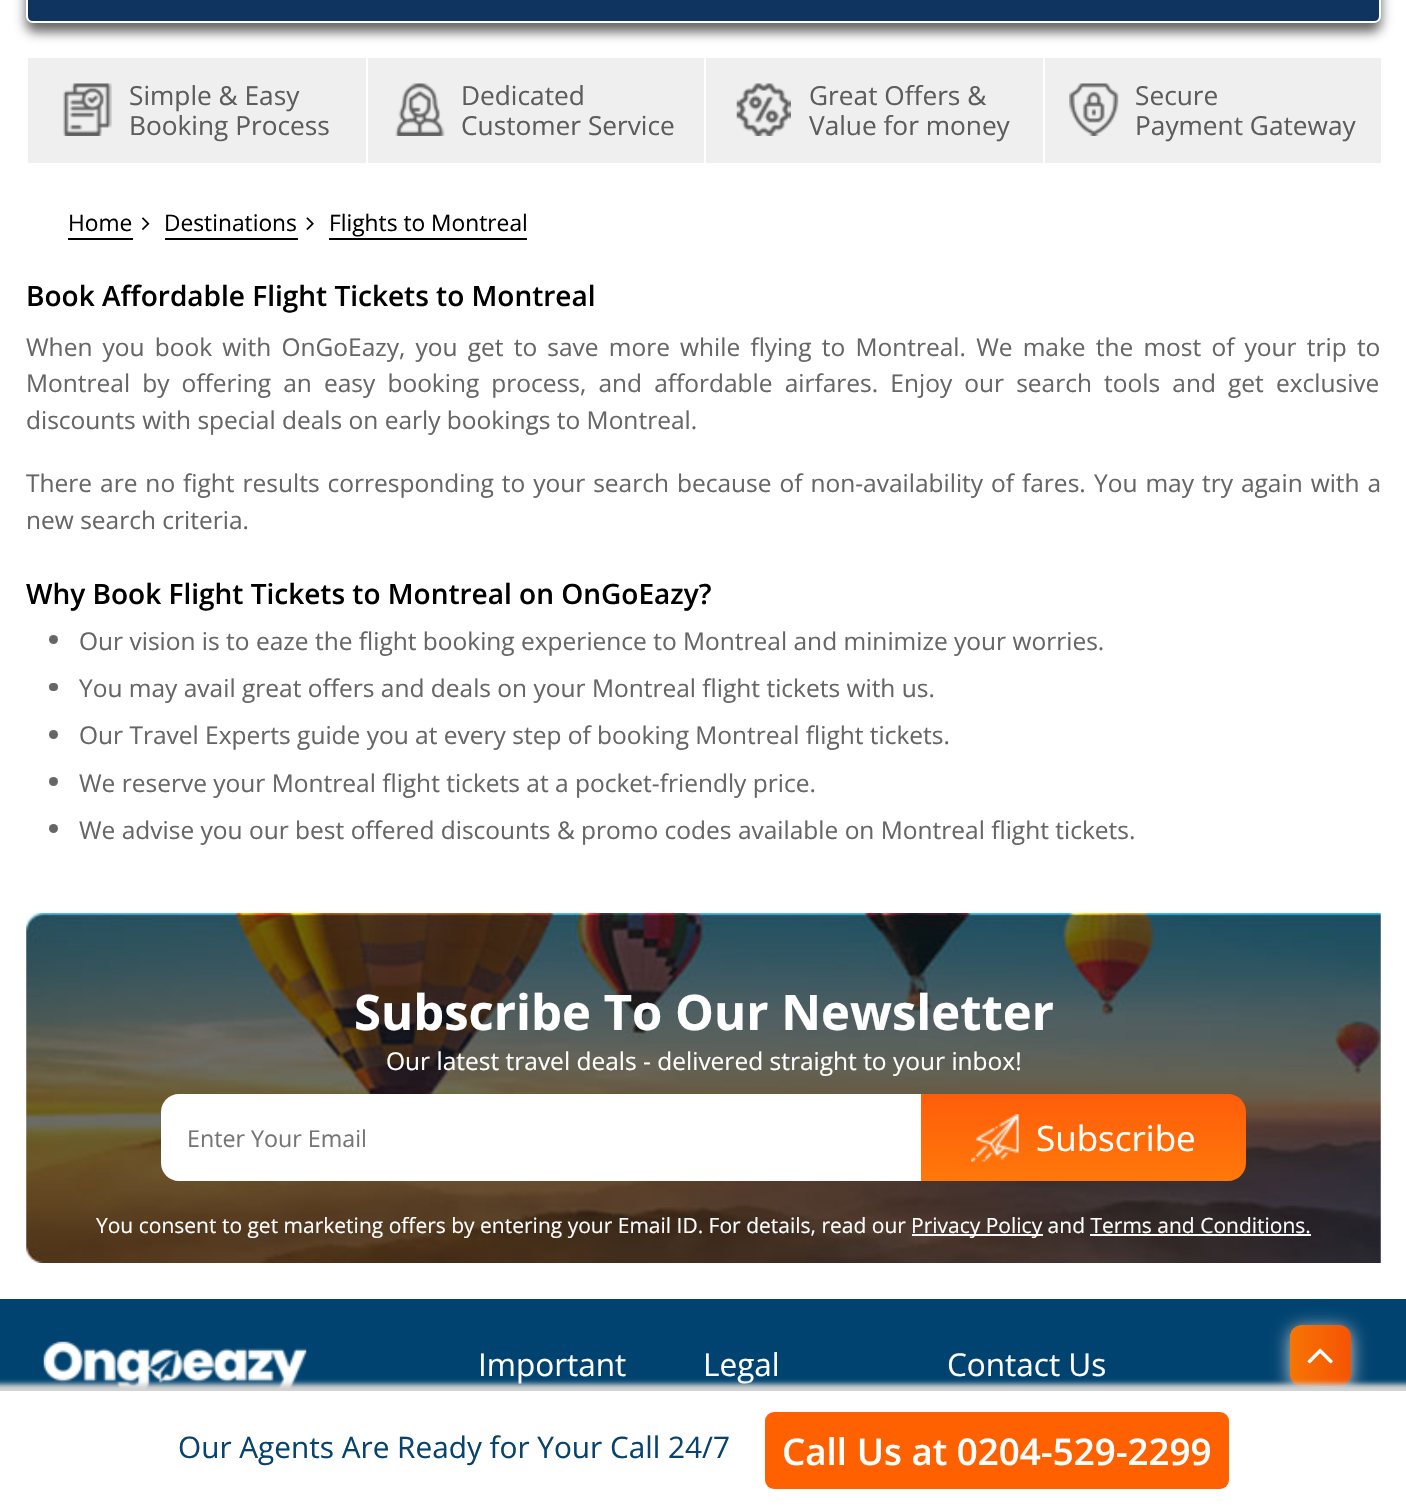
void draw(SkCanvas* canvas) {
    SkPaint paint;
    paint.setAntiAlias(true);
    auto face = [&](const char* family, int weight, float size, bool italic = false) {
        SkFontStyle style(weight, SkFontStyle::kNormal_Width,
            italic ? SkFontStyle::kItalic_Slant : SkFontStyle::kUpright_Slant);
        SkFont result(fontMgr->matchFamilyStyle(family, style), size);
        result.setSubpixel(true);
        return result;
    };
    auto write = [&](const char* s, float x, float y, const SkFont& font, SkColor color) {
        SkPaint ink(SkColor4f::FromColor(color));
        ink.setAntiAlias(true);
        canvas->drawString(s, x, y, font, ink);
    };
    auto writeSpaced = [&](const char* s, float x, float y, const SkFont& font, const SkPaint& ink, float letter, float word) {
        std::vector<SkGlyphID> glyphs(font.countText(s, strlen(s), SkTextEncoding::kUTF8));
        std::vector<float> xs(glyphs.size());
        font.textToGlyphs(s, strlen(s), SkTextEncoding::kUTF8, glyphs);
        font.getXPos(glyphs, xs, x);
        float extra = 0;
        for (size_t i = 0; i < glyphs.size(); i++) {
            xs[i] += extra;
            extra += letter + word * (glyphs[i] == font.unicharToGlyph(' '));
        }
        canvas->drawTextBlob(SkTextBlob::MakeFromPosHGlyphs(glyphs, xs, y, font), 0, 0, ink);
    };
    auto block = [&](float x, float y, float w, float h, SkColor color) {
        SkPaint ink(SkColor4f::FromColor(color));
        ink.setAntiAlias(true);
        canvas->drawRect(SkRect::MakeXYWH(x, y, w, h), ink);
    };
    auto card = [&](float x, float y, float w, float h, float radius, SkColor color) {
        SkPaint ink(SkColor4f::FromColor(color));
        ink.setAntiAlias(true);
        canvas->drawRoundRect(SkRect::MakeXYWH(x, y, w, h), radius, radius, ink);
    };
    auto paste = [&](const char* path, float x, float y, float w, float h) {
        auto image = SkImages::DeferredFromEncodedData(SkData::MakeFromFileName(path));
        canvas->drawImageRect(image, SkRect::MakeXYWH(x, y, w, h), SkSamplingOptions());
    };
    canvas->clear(SK_ColorWHITE);
    paint.setColor(SkColorSetRGB(102, 102, 102));
    paint.setMaskFilter(SkMaskFilter::MakeBlur(kNormal_SkBlurStyle, 6));
    canvas->drawRoundRect(SkRect::MakeXYWH(26, -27, 1355, 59), 9, 9, paint);
    paint.setMaskFilter(nullptr);
    paint.setColor(SkColorSetRGB(15, 52, 96));
    canvas->drawPath(SkPathBuilder().moveTo(27, -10).lineTo(1372, -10).cubicTo(1376.5f, -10, 1380, -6.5f, 1380, -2).lineTo(1380, 16).cubicTo(1380, 19.5f, 1377.5f, 22, 1374, 22).lineTo(33, 22).cubicTo(29.5f, 22, 27, 19.5f, 27, 16).close().detach(), paint);
    paint.setStyle(SkPaint::kStroke_Style);
    paint.setStrokeWidth(2);
    paint.setColor(SK_ColorWHITE);
    canvas->drawPath(SkPathBuilder().moveTo(27, -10).lineTo(1372, -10).cubicTo(1376.5f, -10, 1380, -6.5f, 1380, -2).lineTo(1380, 16).cubicTo(1380, 19.5f, 1377.5f, 22, 1374, 22).lineTo(33, 22).cubicTo(29.5f, 22, 27, 19.5f, 27, 16).close().detach(), paint);
    block(28, 58, 338, 105, SkColorSetRGB(239, 239, 239));
    paste("pic1.png", 63, 83, 49, 53);
    auto kFont1 = face("Open Sans", 400, 26.25f);
    write("Simple & Easy", 129, 105, kFont1, SkColorSetRGB(92, 92, 92));
    write("Booking Process", 129, 135, kFont1, SkColorSetRGB(92, 92, 92));
    block(368, 58, 336, 105, SkColorSetRGB(239, 239, 239));
    paste("pic2.png", 395, 83, 50, 53);
    write("Dedicated", 461, 105, kFont1, SkColorSetRGB(92, 92, 92));
    write("Customer Service", 461, 135, kFont1, SkColorSetRGB(92, 92, 92));
    block(706, 58, 337, 105, SkColorSetRGB(239, 239, 239));
    paste("pic3.png", 736, 83, 55, 53);
    write("Great Offers &", 809, 105, kFont1, SkColorSetRGB(92, 92, 92));
    write("Value for money", 809, 135, kFont1, SkColorSetRGB(92, 92, 92));
    block(1045, 58, 336, 105, SkColorSetRGB(239, 239, 239));
    paste("pic4.png", 1069, 83, 50, 53);
    write("Secure", 1135, 105, kFont1, SkColorSetRGB(92, 92, 92));
    write("Payment Gateway", 1135, 135, kFont1, SkColorSetRGB(92, 92, 92));
    block(68, 238, 65, 2, SK_ColorBLACK);
    auto kFont2 = face("Open Sans", 400, 22.75f);
    write("Home", 68, 231, kFont2, SK_ColorBLACK);
    paste("pic5.png", 142, 217, 8, 13);
    block(165, 238, 133, 2, SK_ColorBLACK);
    write("Destinations", 164, 231, kFont2, SK_ColorBLACK);
    paste("pic6.png", 306, 217, 8, 13);
    block(329, 238, 198, 2, SK_ColorBLACK);
    write("Flights to Montreal", 329, 231, kFont2, SK_ColorBLACK);
    auto kFont3 = face("Open Sans", 600, 28);
    write("Book Affordable Flight Tickets to Montreal", 26, 306, kFont3, SK_ColorBLACK);
    auto kFont4 = face("Open Sans", 400, 24.5f);
    paint.setStyle(SkPaint::kFill_Style);
    paint.setColor(SkColorSetRGB(102, 102, 102));
    writeSpaced("When you book with OnGoEazy, you get to save more while flying to Montreal. We make the most of your trip to", 26, 356, kFont4, paint, 0, 3.8f);
    writeSpaced("Montreal by offering an easy booking process, and affordable airfares. Enjoy our search tools and get exclusive", 26, 392, kFont4, paint, 0, 5.75f);
    write("discounts with special deals on early bookings to Montreal.", 26, 429, kFont4, SkColorSetRGB(102, 102, 102));
    writeSpaced("There are no fight results corresponding to your search because of non-availability of fares.", 26, 492, kFont4, paint, 0, 1.6f);
    writeSpaced("You may try again with a", 1094, 492, kFont4, paint, 0, 1.6f);
    write("new search criteria.", 26, 529, kFont4, SkColorSetRGB(102, 102, 102));
    write("Why Book Flight Tickets to Montreal on OnGoEazy?", 26, 604, kFont3, SK_ColorBLACK);
    canvas->drawCircle(53.5f, 639.5f, 4.5f, paint);
    write("Our vision is to eaze the flight booking experience to Montreal and minimize your worries.", 79, 650, kFont4, SkColorSetRGB(102, 102, 102));
    card(49, 683, 9, 8, 4, SkColorSetRGB(102, 102, 102));
    write("You may avail great offers and deals on your Montreal flight tickets with us.", 79, 697, kFont4, SkColorSetRGB(102, 102, 102));
    canvas->drawCircle(53.5f, 734.5f, 4.5f, paint);
    write("Our Travel Experts guide you at every step of booking Montreal flight tickets.", 79, 744, kFont4, SkColorSetRGB(102, 102, 102));
    canvas->drawCircle(53.5f, 781.5f, 4.5f, paint);
    write("We reserve your Montreal flight tickets at a pocket-friendly price.", 79, 792, kFont4, SkColorSetRGB(102, 102, 102));
    canvas->drawCircle(53.5f, 828.5f, 4.5f, paint);
    write("We advise you our best offered discounts & promo codes available on Montreal flight tickets.", 79, 839, kFont4, SkColorSetRGB(102, 102, 102));
    paste("pic7.png", 26, 913, 1355, 350);
    auto kFont5 = face("Open Sans", 700, 49);
    write("Subscribe To Our Newsletter", 354, 1030, kFont5, SK_ColorWHITE);
    write("Our latest travel deals - delivered straight to your inbox!", 386, 1070, kFont4, SK_ColorWHITE);
    paint.setColor(SK_ColorWHITE);
    canvas->drawPath(SkPathBuilder().moveTo(179, 1094).lineTo(921, 1094).lineTo(921, 1181).lineTo(179, 1181).cubicTo(169, 1181, 161, 1173, 161, 1163).lineTo(161, 1112).cubicTo(161, 1102, 169, 1094, 179, 1094).close().detach(), paint);
    auto kFont6 = face("Open Sans", 400, 23.25f);
    write("Enter Your Email", 187, 1147, kFont6, SkColorSetRGB(117, 117, 117));
    {
        const SkColor colors[] = {SkColorSetRGB(255, 93, 10), SkColorSetRGB(255, 120, 10)};
        const float stops[] = {0, 1};
        const SkPoint ends[] = {{1083, 1094}, {1083, 1181}};
        paint.setShader(SkGradientShader::MakeLinear(ends, colors, stops, 2, SkTileMode::kClamp));
        paint.setAlpha(255);
    }
    canvas->drawPath(SkPathBuilder().moveTo(921, 1094).lineTo(1228, 1094).cubicTo(1238, 1094, 1246, 1102, 1246, 1112).lineTo(1246, 1163).cubicTo(1246, 1173, 1238, 1181, 1228, 1181).lineTo(921, 1181).close().detach(), paint);
    paste("pic8.png", 971, 1114, 48, 48);
    auto kFont7 = face("Open Sans", 400, 35);
    write("Subscribe", 1036, 1151, kFont7, SK_ColorWHITE);
    auto kFont8 = face("Open Sans", 400, 21);
    write("You consent to get marketing offers by entering your Email ID. For details, read our", 96, 1233, kFont8, SK_ColorWHITE);
    block(912, 1234, 131, 2, SK_ColorWHITE);
    write("Privacy Policy and Terms and Conditions.", 911, 1233, kFont8, SK_ColorWHITE);
    block(1090, 1234, 221, 2, SK_ColorWHITE);
    block(0, 1299, 1406, 92, SkColorSetRGB(0, 67, 113));
    paste("pic9.png", 43, 1341, 264, 49);
    auto kFont9 = face("Open Sans", 400, 31.5f);
    write("Important", 478, 1376, kFont9, SK_ColorWHITE);
    write("Legal", 703, 1376, kFont9, SK_ColorWHITE);
    write("Contact Us", 947, 1376, kFont9, SK_ColorWHITE);
    paint.setShader(nullptr);
    paint.setColor(SkColorSetRGB(204, 204, 204));
    paint.setMaskFilter(SkMaskFilter::MakeBlur(kNormal_SkBlurStyle, 9));
    canvas->drawRoundRect(SkRect::MakeXYWH(1290, 1328, 61, 62), 12, 12, paint);
    paint.setMaskFilter(nullptr);
    {
        const SkColor colors[] = {SkColorSetRGB(246, 117, 4), SkColorSetRGB(246, 83, 4)};
        const float stops[] = {0, 1};
        const SkPoint ends[] = {{1290, 1355}, {1351, 1355}};
        paint.setShader(SkGradientShader::MakeLinear(ends, colors, stops, 2, SkTileMode::kClamp));
        paint.setAlpha(255);
    }
    canvas->drawRoundRect(SkRect::MakeXYWH(1290, 1325, 61, 61), 12, 12, paint);
    paste("pic10.png", 1307, 1348, 26, 16);
    paint.setShader(nullptr);
    paint.setColor(SkColorSetRGB(211, 211, 211));
    paint.setMaskFilter(SkMaskFilter::MakeBlur(kNormal_SkBlurStyle, 2.5f));
    canvas->drawRect(SkRect::MakeXYWH(-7, 1384, 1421, 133), paint);
    paint.setMaskFilter(nullptr);
    block(0, 1391, 1406, 118, SK_ColorWHITE);
    auto kFont10 = face("Open Sans", 400, 29.75f);
    write("Our Agents Are Ready for Your Call 24/7", 178, 1458, kFont10, SkColorSetRGB(8, 67, 109));
    card(765, 1412, 464, 77, 9, SkColorSetRGB(255, 96, 0));
    auto kFont11 = face("Open Sans", 600, 36.75f);
    write("Call Us at 0204-529-2299", 782, 1465, kFont11, SK_ColorWHITE);
}
